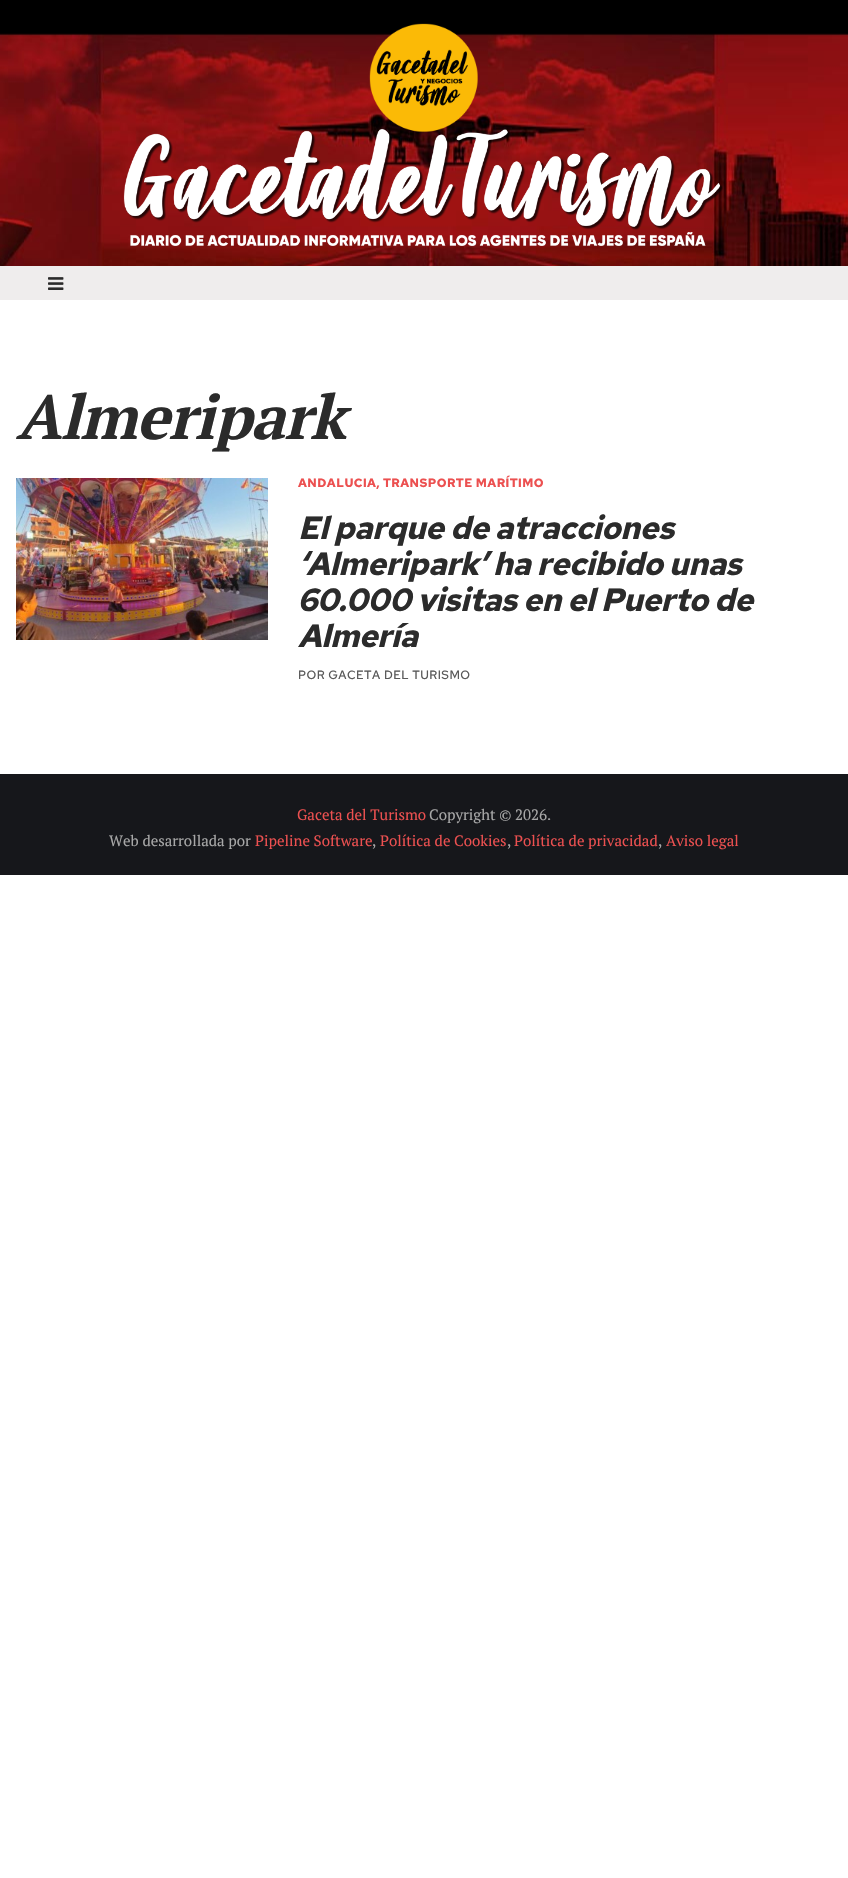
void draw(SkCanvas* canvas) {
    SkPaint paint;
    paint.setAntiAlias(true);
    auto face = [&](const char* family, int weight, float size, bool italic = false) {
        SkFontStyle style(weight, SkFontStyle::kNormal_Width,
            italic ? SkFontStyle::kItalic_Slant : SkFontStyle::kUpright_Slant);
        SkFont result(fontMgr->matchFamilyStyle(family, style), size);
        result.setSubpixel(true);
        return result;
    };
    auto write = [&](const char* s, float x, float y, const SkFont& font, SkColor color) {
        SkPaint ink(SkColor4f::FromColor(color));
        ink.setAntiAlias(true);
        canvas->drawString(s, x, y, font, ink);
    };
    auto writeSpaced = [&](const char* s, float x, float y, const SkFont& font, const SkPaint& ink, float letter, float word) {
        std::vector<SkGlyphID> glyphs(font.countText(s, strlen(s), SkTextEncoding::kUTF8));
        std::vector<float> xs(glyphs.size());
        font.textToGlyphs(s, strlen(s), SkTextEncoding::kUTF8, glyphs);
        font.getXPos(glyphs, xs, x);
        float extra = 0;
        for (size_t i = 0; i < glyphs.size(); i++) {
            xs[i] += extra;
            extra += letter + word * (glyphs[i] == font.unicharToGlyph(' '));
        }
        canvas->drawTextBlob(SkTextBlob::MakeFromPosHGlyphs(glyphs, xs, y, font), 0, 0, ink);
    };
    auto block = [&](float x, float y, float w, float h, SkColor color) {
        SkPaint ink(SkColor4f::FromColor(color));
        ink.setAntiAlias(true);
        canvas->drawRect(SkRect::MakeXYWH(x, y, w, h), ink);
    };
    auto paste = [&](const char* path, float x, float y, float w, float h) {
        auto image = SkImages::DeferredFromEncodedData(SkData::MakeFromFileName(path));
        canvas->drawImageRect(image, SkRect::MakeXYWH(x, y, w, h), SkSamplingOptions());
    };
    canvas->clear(SK_ColorWHITE);
    block(0, 0, 848, 33, SK_ColorBLACK);
    paste("pic1.png", 0, 33, 848, 233);
    paste("pic2.png", 369, 23, 109, 110);
    paste("pic3.png", 123, 129, 600, 117);
    block(0, 266, 848, 34, SkColorSetRGB(239, 237, 237));
    paste("pic4.png", 48, 277, 16, 13);
    auto kFont1 = face("PT Serif", 700, 62, true);
    paint.setColor(SkColorSetRGB(43, 43, 43));
    writeSpaced("Almeripark", 16, 439, kFont1, paint, -1, 0);
    paste("pic5.png", 16, 478, 252, 162);
    auto kFont2 = face("Red Hat Text", 700, 12);
    paint.setColor(SkColorSetRGB(236, 80, 80));
    writeSpaced("ANDALUCIA, TRANSPORTE MARÍTIMO", 298, 487, kFont2, paint, 0.45f, 0);
    auto kFont3 = face("Red Hat Text", 700, 32, true);
    paint.setColor(SkColorSetRGB(43, 43, 43));
    writeSpaced("El parque de atracciones", 298, 539, kFont3, paint, -0.5f, 0);
    writeSpaced("‘Almeripark’ ha recibido unas", 298, 575, kFont3, paint, -0.5f, 0);
    writeSpaced("60.000 visitas en el Puerto de", 298, 611, kFont3, paint, -0.5f, 0);
    writeSpaced("Almería", 298, 647, kFont3, paint, -0.5f, 0);
    auto kFont4 = face("Red Hat Text", 500, 12);
    paint.setColor(SkColorSetRGB(89, 89, 89));
    writeSpaced("POR GACETA DEL TURISMO", 298, 679, kFont4, paint, 0.45f, 0);
    block(0, 774, 848, 101, SkColorSetRGB(22, 23, 27));
    auto kFont5 = face("PT Serif", 400, 15);
    write("Gaceta del Turismo", 297, 820, kFont5, SkColorSetRGB(236, 80, 80));
    write("Copyright © 2026.", 429, 820, kFont5, SkColorSetRGB(167, 167, 167));
    write("Web desarrollada por", 109, 846, kFont5, SkColorSetRGB(167, 167, 167));
    write("Pipeline Software", 255, 846, kFont5, SkColorSetRGB(236, 80, 80));
    write(",", 372, 846, kFont5, SkColorSetRGB(167, 167, 167));
    write("Política de Cookies", 380, 846, kFont5, SkColorSetRGB(236, 80, 80));
    write(",", 507, 846, kFont5, SkColorSetRGB(167, 167, 167));
    write("Política de privacidad", 514, 846, kFont5, SkColorSetRGB(236, 80, 80));
    write(",", 658, 846, kFont5, SkColorSetRGB(167, 167, 167));
    write("Aviso legal", 666, 846, kFont5, SkColorSetRGB(236, 80, 80));
}
